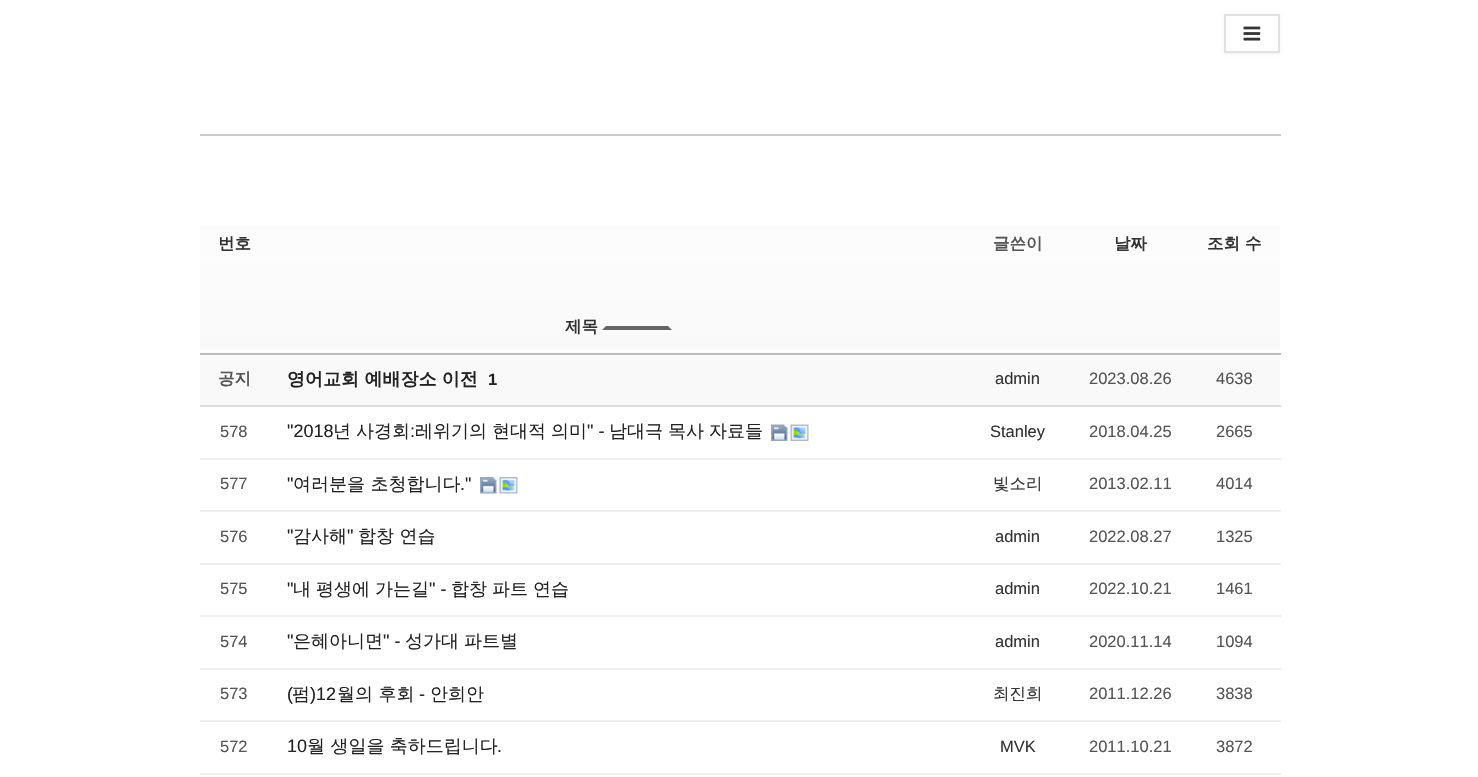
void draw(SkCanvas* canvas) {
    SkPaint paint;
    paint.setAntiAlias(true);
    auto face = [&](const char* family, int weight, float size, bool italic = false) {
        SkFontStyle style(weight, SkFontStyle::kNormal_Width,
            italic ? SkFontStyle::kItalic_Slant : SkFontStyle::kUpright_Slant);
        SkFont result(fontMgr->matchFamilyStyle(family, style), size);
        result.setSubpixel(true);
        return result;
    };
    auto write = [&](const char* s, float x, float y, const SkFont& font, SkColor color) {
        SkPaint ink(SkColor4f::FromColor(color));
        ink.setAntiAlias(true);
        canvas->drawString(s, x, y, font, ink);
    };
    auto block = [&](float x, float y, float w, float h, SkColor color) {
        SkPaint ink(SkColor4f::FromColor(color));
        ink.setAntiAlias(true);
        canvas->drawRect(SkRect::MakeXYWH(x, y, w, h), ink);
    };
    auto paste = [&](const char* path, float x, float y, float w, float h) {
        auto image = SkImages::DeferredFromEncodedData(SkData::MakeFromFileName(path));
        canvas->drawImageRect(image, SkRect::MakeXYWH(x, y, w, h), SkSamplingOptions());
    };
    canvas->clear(SK_ColorWHITE);
    paint.setColor(SkColorSetARGB(13, 0, 0, 0));
    paint.setMaskFilter(SkMaskFilter::MakeBlur(kNormal_SkBlurStyle, 1.5f));
    canvas->drawRect(SkRect::MakeXYWH(1224, 15, 56, 39), paint);
    paint.setMaskFilter(nullptr);
    paint.setColor(SK_ColorWHITE);
    canvas->drawRect(SkRect::MakeXYWH(1225, 15, 54, 37), paint);
    paint.setStyle(SkPaint::kStroke_Style);
    paint.setStrokeWidth(2);
    paint.setColor(SkColorSetRGB(225, 225, 225));
    canvas->drawRect(SkRect::MakeXYWH(1225, 15, 54, 37), paint);
    paste("pic1.png", 1243, 26, 18, 15);
    paint.setStyle(SkPaint::kFill_Style);
    {
        const SkColor colors[] = {SK_ColorWHITE, SkColorSetRGB(249, 249, 249)};
        const float stops[] = {0, 1};
        const SkPoint ends[] = {{740, 135}, {740, 353}};
        paint.setShader(SkGradientShader::MakeLinear(ends, colors, stops, 2, SkTileMode::kClamp));
        paint.setAlpha(255);
    }
    canvas->drawRect(SkRect::MakeXYWH(200, 226, 1080, 127), paint);
    block(200, 350, 1080, 2, SK_ColorWHITE);
    auto kFont1 = face("WenQuanYi Zen Hei", 700, 16.5f);
    write("번호", 218, 249, kFont1, SkColorSetRGB(51, 51, 51));
    write("글쓴이", 993, 249, kFont1, SkColorSetRGB(85, 85, 85));
    write("날짜", 1114, 249, kFont1, SkColorSetRGB(51, 51, 51));
    block(200, 134, 1081, 2, SkColorSetRGB(204, 204, 204));
    block(200, 353, 1081, 2, SkColorSetRGB(187, 187, 187));
    write("조회 수", 1207, 249, kFont1, SkColorSetRGB(51, 51, 51));
    write("제목", 565, 332, kFont1, SkColorSetRGB(51, 51, 51));
    paint.setShader(nullptr);
    paint.setColor(SkColorSetRGB(102, 102, 102));
    canvas->drawPath(SkPathBuilder().moveTo(672, 330).lineTo(602, 330).lineTo(606, 326).lineTo(668, 326).close().detach(), paint);
    block(200, 355, 1080, 50, SkColorSetRGB(249, 249, 249));
    write("공지", 218, 384, kFont1, SkColorSetRGB(85, 85, 85));
    auto kFont2 = face("WenQuanYi Zen Hei", 700, 18);
    write("영어교회 예배장소 이전", 287, 385, kFont2, SkColorSetRGB(34, 34, 34));
    auto kFont3 = face("Liberation Sans", 700, 16.5f);
    write("1", 488, 385, kFont3, SkColorSetRGB(34, 34, 34));
    auto kFont4 = face("Liberation Sans", 400, 16.5f);
    write("admin", 995, 384, kFont4, SkColorSetRGB(51, 51, 51));
    write("2023.08.26", 1089, 384, kFont4, SkColorSetRGB(85, 85, 85));
    block(200, 405, 1081, 2, SkColorSetRGB(221, 221, 221));
    write("4638", 1216, 384, kFont4, SkColorSetRGB(85, 85, 85));
    write("578", 220, 437, kFont4, SkColorSetRGB(85, 85, 85));
    auto kFont5 = face("Liberation Sans", 400, 18);
    write("\"2018", 287, 437, kFont5, SkColorSetRGB(34, 34, 34));
    auto kFont6 = face("WenQuanYi Zen Hei", 500, 18);
    write("년", 333, 437, kFont6, SkColorSetRGB(34, 34, 34));
    write("사경회", 356, 437, kFont6, SkColorSetRGB(34, 34, 34));
    write(":", 410, 437, kFont5, SkColorSetRGB(34, 34, 34));
    write("레위기의", 415, 437, kFont6, SkColorSetRGB(34, 34, 34));
    write("현대적", 492, 437, kFont6, SkColorSetRGB(34, 34, 34));
    write("의미", 551, 437, kFont6, SkColorSetRGB(34, 34, 34));
    write("\" -", 587, 437, kFont5, SkColorSetRGB(34, 34, 34));
    write("남대극", 609, 437, kFont6, SkColorSetRGB(34, 34, 34));
    write("목사", 668, 437, kFont6, SkColorSetRGB(34, 34, 34));
    write("자료들", 709, 437, kFont6, SkColorSetRGB(34, 34, 34));
    paste("pic2.png", 771, 424, 17, 17);
    paste("pic3.png", 790, 424, 19, 17);
    write("Stanley", 990, 437, kFont4, SkColorSetRGB(51, 51, 51));
    write("2018.04.25", 1089, 437, kFont4, SkColorSetRGB(85, 85, 85));
    block(200, 458, 1081, 2, SkColorSetRGB(238, 238, 238));
    write("2665", 1216, 437, kFont4, SkColorSetRGB(85, 85, 85));
    write("577", 220, 489, kFont4, SkColorSetRGB(85, 85, 85));
    write("\"", 287, 490, kFont5, SkColorSetRGB(34, 34, 34));
    write("여러분을 초청합니다", 293, 490, kFont6, SkColorSetRGB(34, 34, 34));
    write(".\"", 460, 490, kFont5, SkColorSetRGB(34, 34, 34));
    paste("pic4.png", 480, 477, 17, 17);
    paste("pic5.png", 499, 477, 19, 17);
    auto kFont7 = face("WenQuanYi Zen Hei", 500, 16.5f);
    write("빛소리", 993, 489, kFont7, SkColorSetRGB(51, 51, 51));
    write("2013.02.11", 1089, 489, kFont4, SkColorSetRGB(85, 85, 85));
    block(200, 510, 1081, 2, SkColorSetRGB(238, 238, 238));
    write("4014", 1216, 489, kFont4, SkColorSetRGB(85, 85, 85));
    write("576", 220, 542, kFont4, SkColorSetRGB(85, 85, 85));
    write("\"", 287, 542, kFont5, SkColorSetRGB(34, 34, 34));
    write("감사해", 293, 542, kFont6, SkColorSetRGB(34, 34, 34));
    write("\"", 347, 542, kFont5, SkColorSetRGB(34, 34, 34));
    write("합창 연습", 358, 542, kFont6, SkColorSetRGB(34, 34, 34));
    write("admin", 995, 542, kFont4, SkColorSetRGB(51, 51, 51));
    write("2022.08.27", 1089, 542, kFont4, SkColorSetRGB(85, 85, 85));
    block(200, 563, 1081, 2, SkColorSetRGB(238, 238, 238));
    write("1325", 1216, 542, kFont4, SkColorSetRGB(85, 85, 85));
    write("575", 220, 594, kFont4, SkColorSetRGB(85, 85, 85));
    write("\"", 287, 595, kFont5, SkColorSetRGB(34, 34, 34));
    write("내", 293, 595, kFont6, SkColorSetRGB(34, 34, 34));
    write("평생에", 316, 595, kFont6, SkColorSetRGB(34, 34, 34));
    write("가는길", 375, 595, kFont6, SkColorSetRGB(34, 34, 34));
    write("\" -", 429, 595, kFont5, SkColorSetRGB(34, 34, 34));
    write("합창", 451, 595, kFont6, SkColorSetRGB(34, 34, 34));
    write("파트", 492, 595, kFont6, SkColorSetRGB(34, 34, 34));
    write("연습", 533, 595, kFont6, SkColorSetRGB(34, 34, 34));
    write("admin", 995, 594, kFont4, SkColorSetRGB(51, 51, 51));
    write("2022.10.21", 1089, 594, kFont4, SkColorSetRGB(85, 85, 85));
    block(200, 615, 1081, 2, SkColorSetRGB(238, 238, 238));
    write("1461", 1216, 594, kFont4, SkColorSetRGB(85, 85, 85));
    write("574", 220, 647, kFont4, SkColorSetRGB(85, 85, 85));
    write("\"", 287, 647, kFont5, SkColorSetRGB(34, 34, 34));
    write("은혜아니면", 293, 647, kFont6, SkColorSetRGB(34, 34, 34));
    write("\" -", 383, 647, kFont5, SkColorSetRGB(34, 34, 34));
    write("성가대", 405, 647, kFont6, SkColorSetRGB(34, 34, 34));
    write("파트별", 464, 647, kFont6, SkColorSetRGB(34, 34, 34));
    write("admin", 995, 647, kFont4, SkColorSetRGB(51, 51, 51));
    write("2020.11.14", 1089, 647, kFont4, SkColorSetRGB(85, 85, 85));
    block(200, 668, 1081, 2, SkColorSetRGB(238, 238, 238));
    write("1094", 1216, 647, kFont4, SkColorSetRGB(85, 85, 85));
    write("573", 220, 699, kFont4, SkColorSetRGB(85, 85, 85));
    write("(", 287, 700, kFont5, SkColorSetRGB(34, 34, 34));
    write("펌", 292, 700, kFont6, SkColorSetRGB(34, 34, 34));
    write(")12", 310, 700, kFont5, SkColorSetRGB(34, 34, 34));
    write("월의 후회", 337, 700, kFont6, SkColorSetRGB(34, 34, 34));
    write("-", 419, 700, kFont5, SkColorSetRGB(34, 34, 34));
    write("안희안", 430, 700, kFont6, SkColorSetRGB(34, 34, 34));
    write("최진희", 993, 699, kFont7, SkColorSetRGB(51, 51, 51));
    write("2011.12.26", 1089, 699, kFont4, SkColorSetRGB(85, 85, 85));
    block(200, 720, 1081, 2, SkColorSetRGB(238, 238, 238));
    write("3838", 1216, 699, kFont4, SkColorSetRGB(85, 85, 85));
    write("572", 220, 752, kFont4, SkColorSetRGB(85, 85, 85));
    write("10", 287, 752, kFont5, SkColorSetRGB(34, 34, 34));
    write("월 생일을 축하드립니다", 307, 752, kFont6, SkColorSetRGB(34, 34, 34));
    write(".", 497, 752, kFont5, SkColorSetRGB(34, 34, 34));
    write("MVK", 1000, 752, kFont4, SkColorSetRGB(51, 51, 51));
    write("2011.10.21", 1089, 752, kFont4, SkColorSetRGB(85, 85, 85));
    block(200, 773, 1081, 2, SkColorSetRGB(238, 238, 238));
    write("3872", 1216, 752, kFont4, SkColorSetRGB(85, 85, 85));
}
